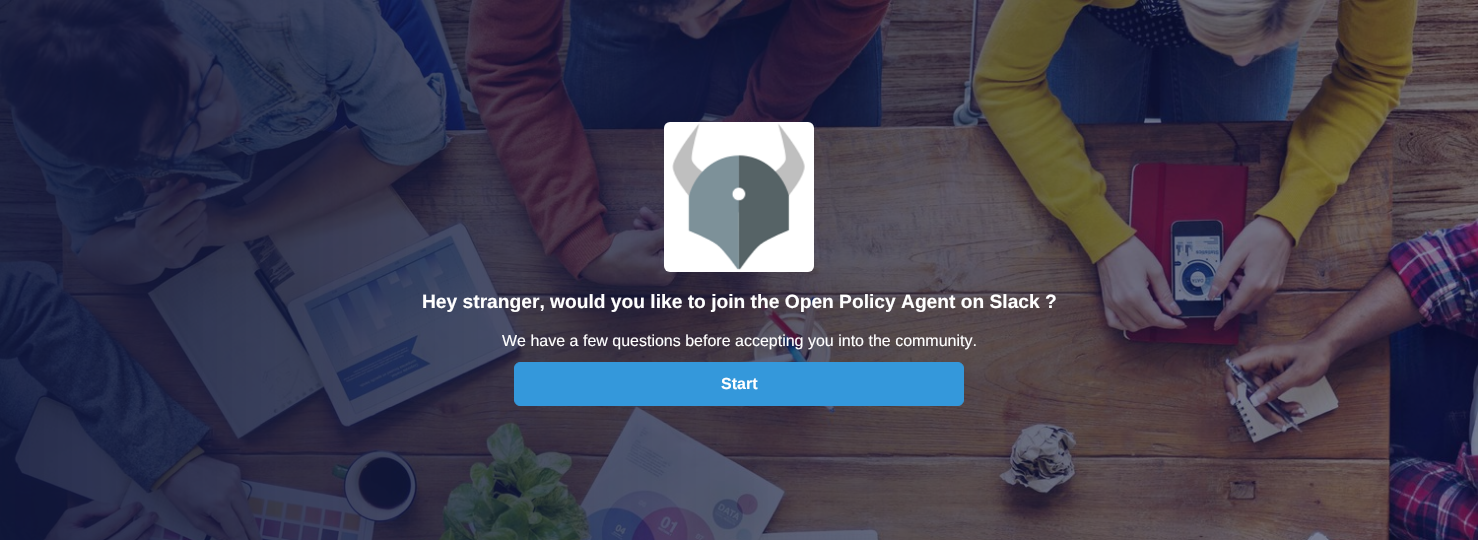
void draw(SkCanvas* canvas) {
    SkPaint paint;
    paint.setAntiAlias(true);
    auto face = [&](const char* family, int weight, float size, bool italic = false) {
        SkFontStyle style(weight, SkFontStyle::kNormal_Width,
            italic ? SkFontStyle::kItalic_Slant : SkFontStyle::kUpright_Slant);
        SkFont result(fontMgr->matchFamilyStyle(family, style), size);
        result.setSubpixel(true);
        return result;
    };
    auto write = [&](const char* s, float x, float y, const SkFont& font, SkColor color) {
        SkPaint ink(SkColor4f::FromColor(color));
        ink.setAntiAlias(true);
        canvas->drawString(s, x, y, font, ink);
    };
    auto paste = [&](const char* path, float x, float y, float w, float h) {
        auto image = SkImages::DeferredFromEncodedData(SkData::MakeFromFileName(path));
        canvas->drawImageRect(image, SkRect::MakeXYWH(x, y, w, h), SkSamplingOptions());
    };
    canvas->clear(SK_ColorWHITE);
    paste("pic1.png", 0, 0, 1478, 540);
    paste("pic2.png", 664, 122, 150, 150);
    auto kFont1 = face("Liberation Sans", 700, 19.2f);
    write("Hey stranger, would you like to join the Open Policy Agent on Slack ?", 422, 308, kFont1, SK_ColorWHITE);
    auto kFont2 = face("Liberation Sans", 400, 16);
    write("We have a few questions before accepting you into the community.", 502, 346, kFont2, SK_ColorWHITE);
    paint.setColor(SkColorSetRGB(52, 152, 219));
    canvas->drawRoundRect(SkRect::MakeXYWH(514.5f, 362.5f, 449, 43), 5.5f, 5.5f, paint);
    paint.setStyle(SkPaint::kStroke_Style);
    paint.setStrokeWidth(1);
    canvas->drawRoundRect(SkRect::MakeXYWH(514.5f, 362.5f, 449, 43), 5.5f, 5.5f, paint);
    auto kFont3 = face("Liberation Sans", 700, 16);
    write("Start", 721, 389, kFont3, SK_ColorWHITE);
}
